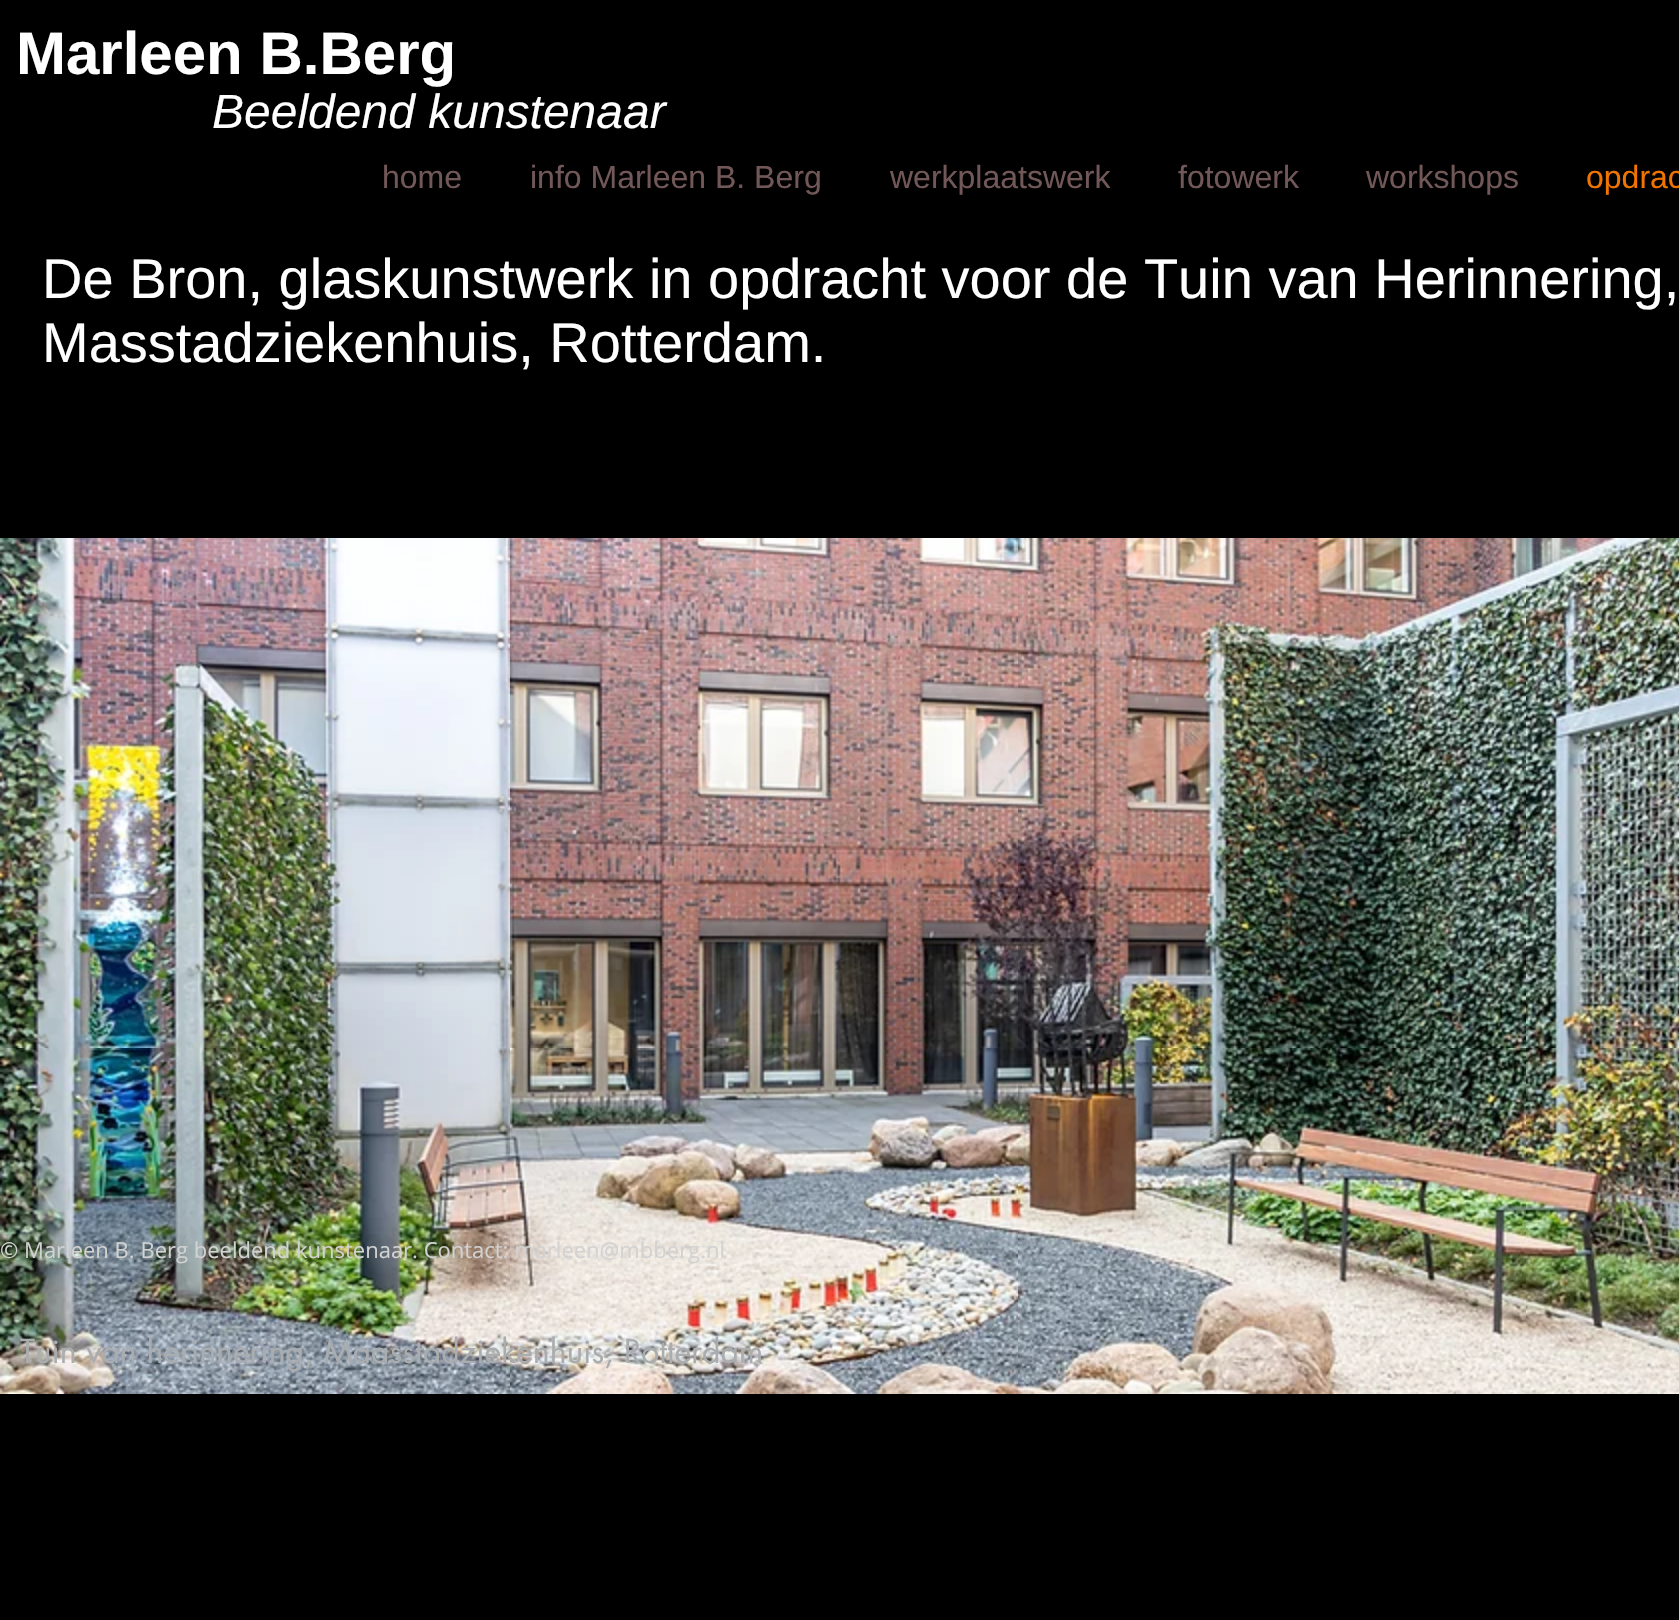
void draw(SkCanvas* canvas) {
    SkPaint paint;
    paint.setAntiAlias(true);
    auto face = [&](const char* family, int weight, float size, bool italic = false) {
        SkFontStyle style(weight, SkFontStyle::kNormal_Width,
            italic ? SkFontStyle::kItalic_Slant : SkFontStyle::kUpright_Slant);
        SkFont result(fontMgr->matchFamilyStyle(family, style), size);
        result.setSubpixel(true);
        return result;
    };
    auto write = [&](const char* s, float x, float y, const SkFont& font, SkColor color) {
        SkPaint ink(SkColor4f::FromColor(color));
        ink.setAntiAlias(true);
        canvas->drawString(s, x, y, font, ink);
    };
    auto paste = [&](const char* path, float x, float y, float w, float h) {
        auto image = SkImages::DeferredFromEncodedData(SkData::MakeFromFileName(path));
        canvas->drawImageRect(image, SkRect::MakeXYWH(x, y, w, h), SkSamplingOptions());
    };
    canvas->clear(SK_ColorBLACK);
    auto kFont1 = face("Liberation Sans", 700, 60);
    write("Marleen B.Berg", 16, 74, kFont1, SK_ColorWHITE);
    auto kFont2 = face("Liberation Sans", 400, 48, true);
    write("Beeldend kunstenaar", 212, 128, kFont2, SK_ColorWHITE);
    auto kFont3 = face("Liberation Sans", 400, 32);
    write("home", 382, 188, kFont3, SkColorSetRGB(113, 87, 87));
    write("info Marleen B. Berg", 530, 188, kFont3, SkColorSetRGB(113, 87, 87));
    write("werkplaatswerk", 890, 188, kFont3, SkColorSetRGB(113, 87, 87));
    write("fotowerk", 1178, 188, kFont3, SkColorSetRGB(113, 87, 87));
    write("workshops", 1366, 188, kFont3, SkColorSetRGB(113, 87, 87));
    write("opdrac", 1586, 188, kFont3, SkColorSetRGB(241, 115, 0));
    auto kFont4 = face("Liberation Sans", 400, 56);
    write("De Bron, glaskunstwerk in opdracht voor de Tuin van Herinnering,", 42, 298, kFont4, SK_ColorWHITE);
    write("Masstadziekenhuis, Rotterdam.", 42, 362, kFont4, SK_ColorWHITE);
    paste("pic1.png", 0, 538, 1679, 856);
    auto kFont5 = face("futura", 400, 32);
    write("Tuin van herinnering, Maasstadziekenhuis, Rotterdam", 20, 1363, kFont5, SkColorSetRGB(170, 173, 176));
    auto kFont6 = face("Open Sans", 400, 22);
    write("© Marleen B. Berg beeldend kunstenaar. Contact: marleen@mbberg.nl", 0, 1258, kFont6, SkColorSetRGB(210, 210, 210));
}
